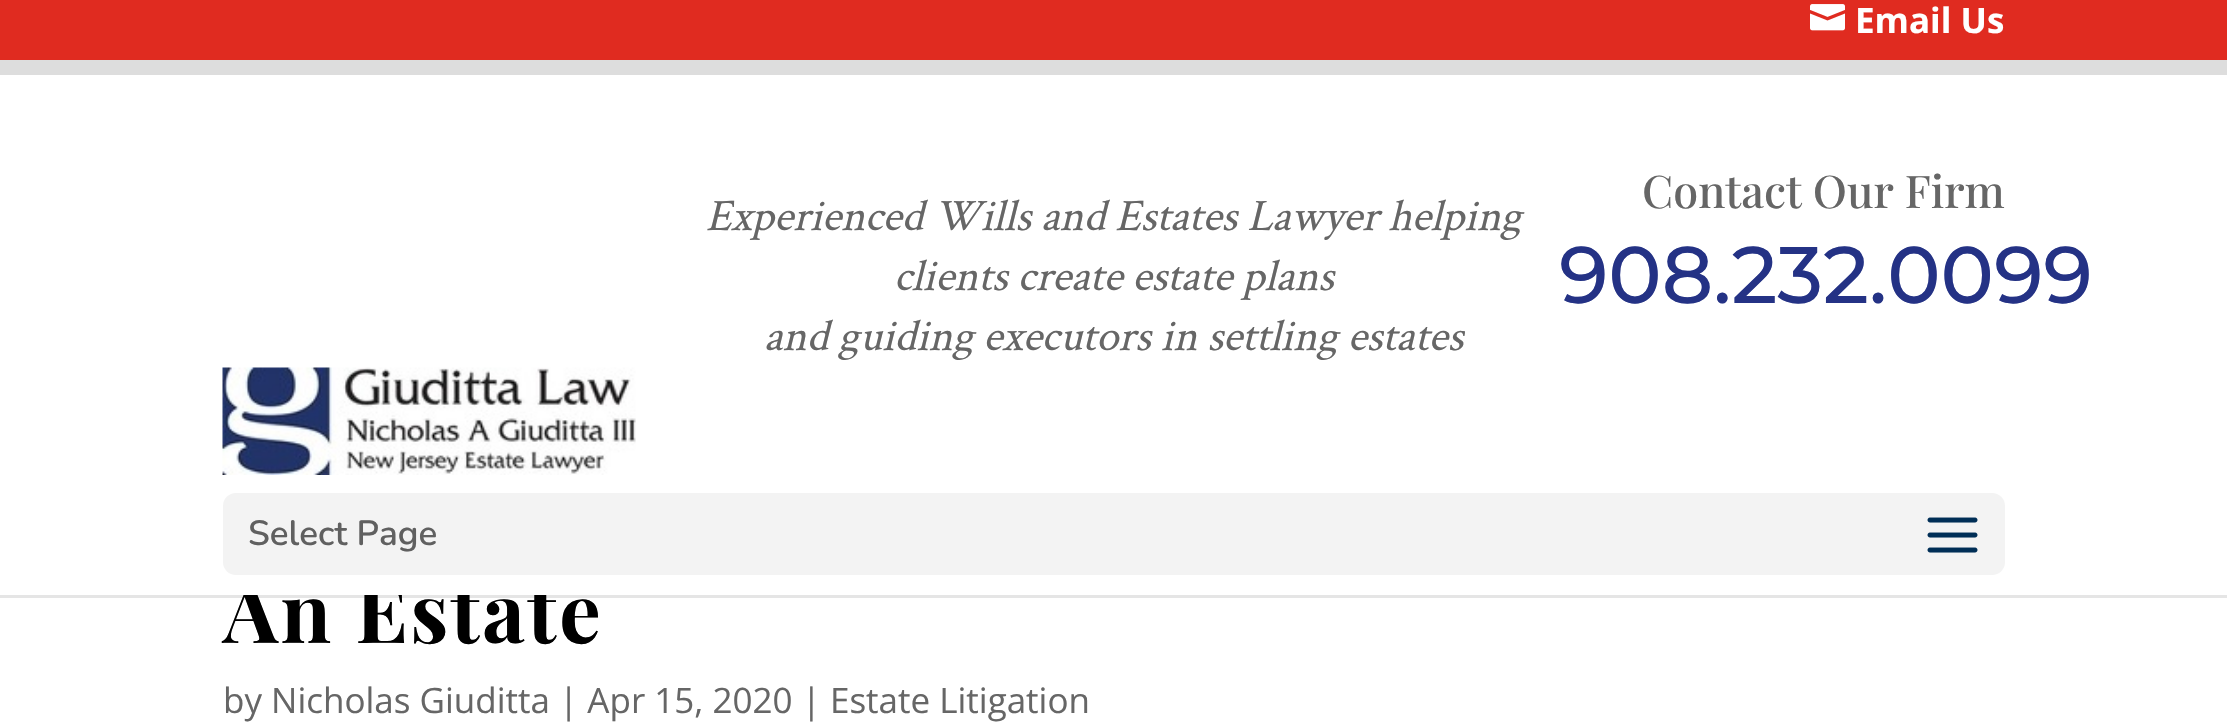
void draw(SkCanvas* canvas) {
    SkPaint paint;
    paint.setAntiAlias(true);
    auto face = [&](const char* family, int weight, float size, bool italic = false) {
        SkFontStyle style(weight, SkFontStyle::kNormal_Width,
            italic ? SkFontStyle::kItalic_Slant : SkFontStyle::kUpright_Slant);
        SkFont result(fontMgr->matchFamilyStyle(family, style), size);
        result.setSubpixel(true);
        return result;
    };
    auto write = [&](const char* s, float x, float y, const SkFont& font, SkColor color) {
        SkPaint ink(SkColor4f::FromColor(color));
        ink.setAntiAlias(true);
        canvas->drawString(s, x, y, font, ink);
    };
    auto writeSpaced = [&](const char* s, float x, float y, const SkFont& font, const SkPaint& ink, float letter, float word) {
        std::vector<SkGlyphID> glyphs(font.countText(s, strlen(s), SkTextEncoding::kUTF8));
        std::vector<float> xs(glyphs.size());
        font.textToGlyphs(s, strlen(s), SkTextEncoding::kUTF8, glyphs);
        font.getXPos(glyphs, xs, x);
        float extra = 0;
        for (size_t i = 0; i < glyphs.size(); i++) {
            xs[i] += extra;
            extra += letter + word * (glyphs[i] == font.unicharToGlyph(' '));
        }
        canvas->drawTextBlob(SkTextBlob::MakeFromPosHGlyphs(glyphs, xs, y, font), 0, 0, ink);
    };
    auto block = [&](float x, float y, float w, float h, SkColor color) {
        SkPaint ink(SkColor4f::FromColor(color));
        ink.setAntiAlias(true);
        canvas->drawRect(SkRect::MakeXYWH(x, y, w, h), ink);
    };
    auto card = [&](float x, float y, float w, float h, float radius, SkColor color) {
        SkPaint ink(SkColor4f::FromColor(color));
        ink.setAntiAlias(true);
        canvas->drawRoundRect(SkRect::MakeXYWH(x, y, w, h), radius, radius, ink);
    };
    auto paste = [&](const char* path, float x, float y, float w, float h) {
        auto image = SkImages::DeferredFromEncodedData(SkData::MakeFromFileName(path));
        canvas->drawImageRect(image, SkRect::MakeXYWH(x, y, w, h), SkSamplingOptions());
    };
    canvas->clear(SkColorSetRGB(221, 221, 221));
    block(0, 0, 2227, 60, SkColorSetRGB(224, 43, 32));
    paste("pic1.png", 1810, 4, 35, 27);
    auto kFont1 = face("Open Sans", 700, 35);
    write("Email Us", 1855, 33, kFont1, SK_ColorWHITE);
    block(0, 595, 2227, 131, SK_ColorWHITE);
    paint.setColor(SkColorSetARGB(26, 0, 0, 0));
    canvas->drawPath(SkPathBuilder().moveTo(0, 595).lineTo(0, 598).lineTo(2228, 598).lineTo(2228, 78).lineTo(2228, 595).close().detach(), paint);
    auto kFont2 = face("Playfair Display", 700, 82.5f);
    paint.setColor(SK_ColorBLACK);
    writeSpaced("An Estate", 223, 643, kFont2, paint, 2.5f, 0);
    block(0, 75, 2227, 520, SK_ColorWHITE);
    auto kFont3 = face("Crimson Text", 400, 45, true);
    write("Experienced Wills and Estates Lawyer helping", 706, 230, kFont3, SkColorSetRGB(102, 102, 102));
    write("clients create estate plans", 894, 290, kFont3, SkColorSetRGB(102, 102, 102));
    write("and guiding executors in settling estates", 764, 350, kFont3, SkColorSetRGB(102, 102, 102));
    auto kFont4 = face("Playfair Display", 500, 45);
    write("Contact Our Firm", 1642, 208, kFont4, SkColorSetRGB(102, 102, 102));
    auto kFont5 = face("Montserrat", 500, 80);
    write("908.232.0099", 1559, 303, kFont5, SkColorSetRGB(36, 50, 133));
    paste("pic2.png", 222, 367, 414, 108);
    card(223, 493, 1782, 82, 13, SkColorSetRGB(243, 243, 243));
    auto kFont6 = face("Nunito", 600, 35);
    write("Select Page", 248, 545, kFont6, SkColorSetRGB(96, 96, 96));
    paste("pic3.png", 1927, 517, 51, 36);
    auto kFont7 = face("Open Sans", 400, 35);
    write("by Nicholas Giuditta | Apr 15, 2020 | Estate Litigation", 223, 713, kFont7, SkColorSetRGB(102, 102, 102));
}
